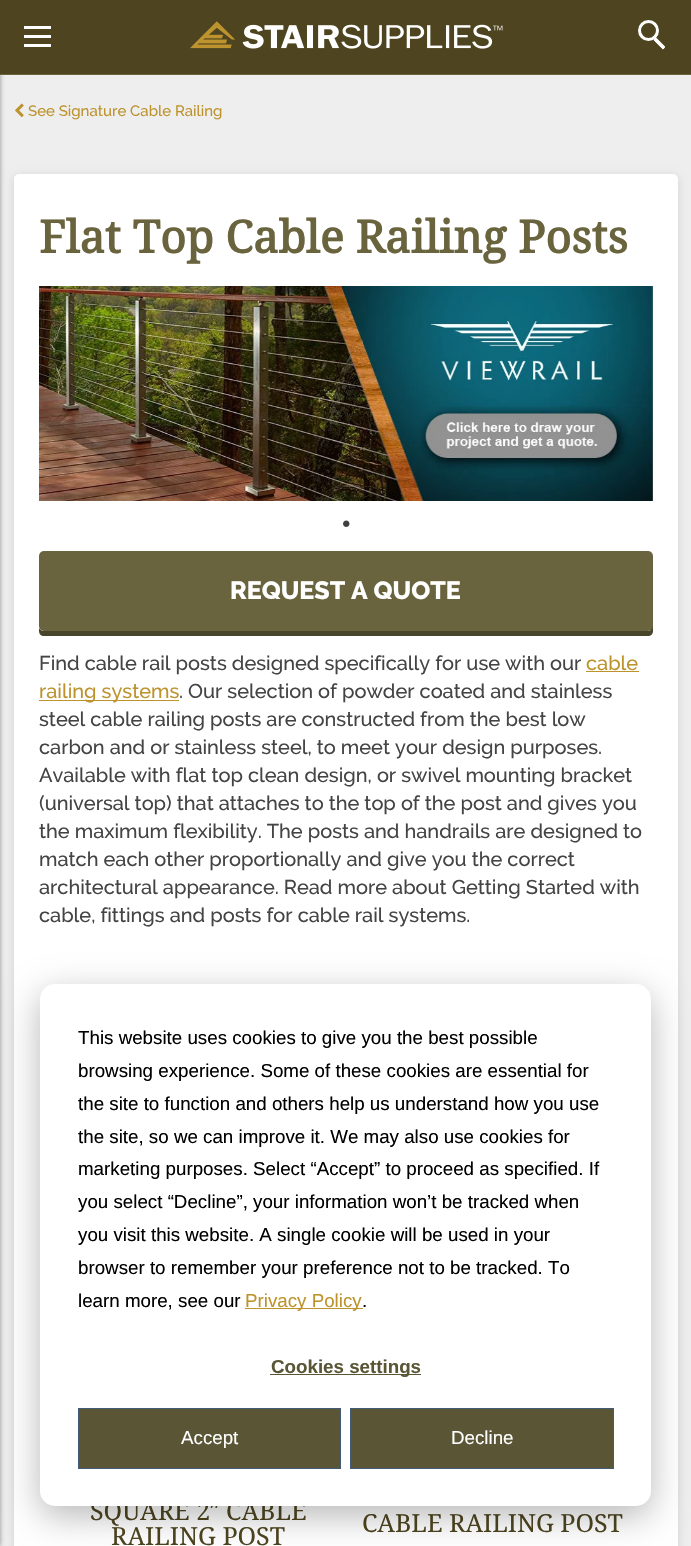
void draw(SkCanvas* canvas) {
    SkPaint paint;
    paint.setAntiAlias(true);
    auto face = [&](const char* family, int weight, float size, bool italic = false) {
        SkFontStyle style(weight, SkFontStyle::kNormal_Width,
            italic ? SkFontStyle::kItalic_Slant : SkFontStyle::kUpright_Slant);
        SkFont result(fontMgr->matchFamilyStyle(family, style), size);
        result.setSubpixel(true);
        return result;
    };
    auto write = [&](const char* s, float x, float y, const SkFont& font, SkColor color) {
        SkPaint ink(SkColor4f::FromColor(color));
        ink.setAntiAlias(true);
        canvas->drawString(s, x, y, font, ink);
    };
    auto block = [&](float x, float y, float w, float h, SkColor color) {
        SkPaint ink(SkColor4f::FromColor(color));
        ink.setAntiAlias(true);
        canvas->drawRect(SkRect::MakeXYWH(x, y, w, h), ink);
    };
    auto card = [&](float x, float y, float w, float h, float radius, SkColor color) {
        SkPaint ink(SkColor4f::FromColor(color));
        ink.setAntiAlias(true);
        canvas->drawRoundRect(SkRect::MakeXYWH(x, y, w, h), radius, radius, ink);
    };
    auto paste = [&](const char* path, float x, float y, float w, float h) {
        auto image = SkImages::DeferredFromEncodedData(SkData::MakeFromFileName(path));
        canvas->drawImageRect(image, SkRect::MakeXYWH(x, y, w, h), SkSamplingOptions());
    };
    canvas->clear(SkColorSetRGB(238, 238, 238));
    paint.setColor(SkColorSetARGB(102, 0, 0, 0));
    paint.setMaskFilter(SkMaskFilter::MakeBlur(kNormal_SkBlurStyle, 2.5f));
    canvas->drawRect(SkRect::MakeXYWH(-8, 0, 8, 1546), paint);
    paint.setMaskFilter(nullptr);
    block(0, 0, 691, 74, SkColorSetRGB(78, 69, 32));
    block(0, 74, 691, 1, SkColorSetRGB(105, 100, 62));
    block(24, 26, 27, 3, SK_ColorWHITE);
    block(24, 35, 27, 3, SK_ColorWHITE);
    block(24, 44, 27, 3, SK_ColorWHITE);
    paste("pic1.png", 190, 21, 313, 28);
    paint.setStyle(SkPaint::kStroke_Style);
    paint.setStrokeWidth(3);
    paint.setColor(SK_ColorWHITE);
    canvas->drawCircle(648.5f, 30.5f, 9, paint);
    paint.setStyle(SkPaint::kFill_Style);
    canvas->drawPath(SkPathBuilder().moveTo(654.5f, 39).cubicTo(655.5f, 38, 656, 37.5f, 656.5f, 38).lineTo(665, 46.5f).cubicTo(665, 46.5f, 665, 47.5f, 664, 48.5f).cubicTo(663.5f, 49, 662.5f, 49.5f, 662.5f, 49).lineTo(654, 40.5f).cubicTo(653.5f, 40.5f, 654, 39.5f, 654.5f, 39).close().detach(), paint);
    paint.setStyle(SkPaint::kStroke_Style);
    paint.setStrokeWidth(0.8f);
    canvas->drawPath(SkPathBuilder().moveTo(655, 39).cubicTo(655.5f, 38.5f, 656, 38, 656, 38.5f).lineTo(664.5f, 47).cubicTo(664.5f, 47, 664.5f, 47.5f, 664, 48).cubicTo(663.5f, 48.5f, 663, 49, 662.5f, 48.5f).lineTo(654, 40).cubicTo(654, 40, 654.5f, 39.5f, 655, 39).close().detach(), paint);
    paste("pic2.png", 15, 103, 9, 15);
    auto kFont1 = face("Raleway", 500, 15);
    write("See Signature Cable Railing", 28, 116, kFont1, SkColorSetRGB(189, 147, 46));
    paint.setStyle(SkPaint::kFill_Style);
    paint.setColor(SkColorSetARGB(31, 0, 0, 0));
    paint.setMaskFilter(SkMaskFilter::MakeBlur(kNormal_SkBlurStyle, 4));
    canvas->drawRoundRect(SkRect::MakeXYWH(14, 176, 664, 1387), 5, 5, paint);
    paint.setMaskFilter(nullptr);
    card(14, 174, 664, 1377, 5, SK_ColorWHITE);
    auto kFont2 = face("Noto Serif", 700, 45);
    write("Flat Top Cable Railing Posts", 39, 253, kFont2, SkColorSetRGB(105, 100, 62));
    paste("pic3.png", 39, 286, 614, 215);
    paste("pic4.png", 343, 520, 7, 7);
    paint.setColor(SkColorSetRGB(73, 69, 43));
    canvas->drawPath(SkPathBuilder().moveTo(39, 628).lineTo(39, 631).cubicTo(39, 634, 41, 636, 44, 636).lineTo(648, 636).cubicTo(651, 636, 653, 634, 653, 631).lineTo(653, 561).lineTo(652, 559).lineTo(652, 626).cubicTo(652, 629, 650, 631, 648, 631).lineTo(44, 631).cubicTo(42, 631, 40, 630, 39, 628).close().detach(), paint);
    card(39, 551, 614, 80, 5, SkColorSetRGB(105, 100, 62));
    auto kFont3 = face("Raleway", 800, 25);
    write("REQUEST A QUOTE", 230, 599, kFont3, SK_ColorWHITE);
    auto kFont4 = face("Raleway", 500, 20);
    write("Find cable rail posts designed specifically for use with our", 39, 670, kFont4, SkColorSetRGB(68, 68, 68));
    write("cable", 586, 670, kFont4, SkColorSetRGB(189, 147, 46));
    block(586, 671, 53, 1, SkColorSetRGB(189, 147, 46));
    block(39, 700, 140, 1, SkColorSetRGB(189, 147, 46));
    write("railing systems", 39, 698, kFont4, SkColorSetRGB(189, 147, 46));
    write(". Our selection of powder coated and stainless", 179, 698, kFont4, SkColorSetRGB(68, 68, 68));
    write("steel cable railing posts are constructed from the best low", 39, 726, kFont4, SkColorSetRGB(68, 68, 68));
    write("carbon and or stainless steel, to meet your design purposes.", 39, 754, kFont4, SkColorSetRGB(68, 68, 68));
    write("Available with flat top clean design, or swivel mounting bracket", 39, 782, kFont4, SkColorSetRGB(68, 68, 68));
    write("(universal top) that attaches to the top of the post and gives you", 39, 810, kFont4, SkColorSetRGB(68, 68, 68));
    write("the maximum flexibility. The posts and handrails are designed to", 39, 838, kFont4, SkColorSetRGB(68, 68, 68));
    write("match each other proportionally and give you the correct", 39, 866, kFont4, SkColorSetRGB(68, 68, 68));
    write("architectural appearance. Read more about Getting Started with", 39, 894, kFont4, SkColorSetRGB(68, 68, 68));
    write("cable, fittings and posts for cable rail systems.", 39, 922, kFont4, SkColorSetRGB(68, 68, 68));
    auto kFont5 = face("Noto Serif", 400, 25);
    write("SQUARE 2″ CABLE", 90, 1520, kFont5, SkColorSetRGB(78, 69, 32));
    write("RAILING POST", 111, 1545, kFont5, SkColorSetRGB(78, 69, 32));
    write("CABLE RAILING POST", 362, 1532, kFont5, SkColorSetRGB(78, 69, 32));
    paint.setColor(SkColorSetARGB(71, 0, 0, 0));
    paint.setMaskFilter(SkMaskFilter::MakeBlur(kNormal_SkBlurStyle, 17.5f));
    canvas->drawRoundRect(SkRect::MakeXYWH(40, 994, 611, 522), 15, 15, paint);
    paint.setMaskFilter(nullptr);
    card(40, 984, 611, 522, 15, SK_ColorWHITE);
    auto kFont6 = face("Liberation Sans", 400, 18.75f);
    write("This website uses cookies to give you the best possible", 78, 1044, kFont6, SK_ColorBLACK);
    write("browsing experience. Some of these cookies are essential for", 78, 1077, kFont6, SK_ColorBLACK);
    write("the site to function and others help us understand how you use", 78, 1110, kFont6, SK_ColorBLACK);
    write("the site, so we can improve it. We may also use cookies for", 78, 1143, kFont6, SK_ColorBLACK);
    write("marketing purposes. Select “Accept” to proceed as specified. If", 78, 1175, kFont6, SK_ColorBLACK);
    write("you select “Decline”, your information won’t be tracked when", 78, 1208, kFont6, SK_ColorBLACK);
    write("you visit this website. A single cookie will be used in your", 78, 1241, kFont6, SK_ColorBLACK);
    write("browser to remember your preference not to be tracked. To", 78, 1274, kFont6, SK_ColorBLACK);
    write("learn more, see our", 78, 1307, kFont6, SK_ColorBLACK);
    block(245, 1308, 118, 1, SkColorSetRGB(189, 147, 46));
    write("Privacy Policy", 245, 1307, kFont6, SkColorSetRGB(189, 147, 46));
    write(".", 362, 1307, kFont6, SK_ColorBLACK);
    block(270, 1374, 151, 1, SkColorSetRGB(89, 85, 53));
    auto kFont7 = face("Liberation Sans", 700, 18.75f);
    write("Cookies settings", 271, 1373, kFont7, SkColorSetRGB(89, 85, 53));
    paint.setColor(SkColorSetRGB(89, 85, 53));
    canvas->drawRect(SkRect::MakeXYWH(78.5f, 1408.5f, 262, 60), paint);
    paint.setStyle(SkPaint::kStroke_Style);
    paint.setStrokeWidth(1);
    paint.setColor(SkColorSetRGB(66, 91, 118));
    canvas->drawRect(SkRect::MakeXYWH(78.5f, 1408.5f, 262, 60), paint);
    write("Accept", 181, 1444, kFont6, SK_ColorWHITE);
    paint.setStyle(SkPaint::kFill_Style);
    paint.setColor(SkColorSetRGB(89, 85, 53));
    canvas->drawRect(SkRect::MakeXYWH(350.5f, 1408.5f, 263, 60), paint);
    paint.setStyle(SkPaint::kStroke_Style);
    paint.setColor(SkColorSetRGB(66, 91, 118));
    canvas->drawRect(SkRect::MakeXYWH(350.5f, 1408.5f, 263, 60), paint);
    write("Decline", 451, 1444, kFont6, SK_ColorWHITE);
}
